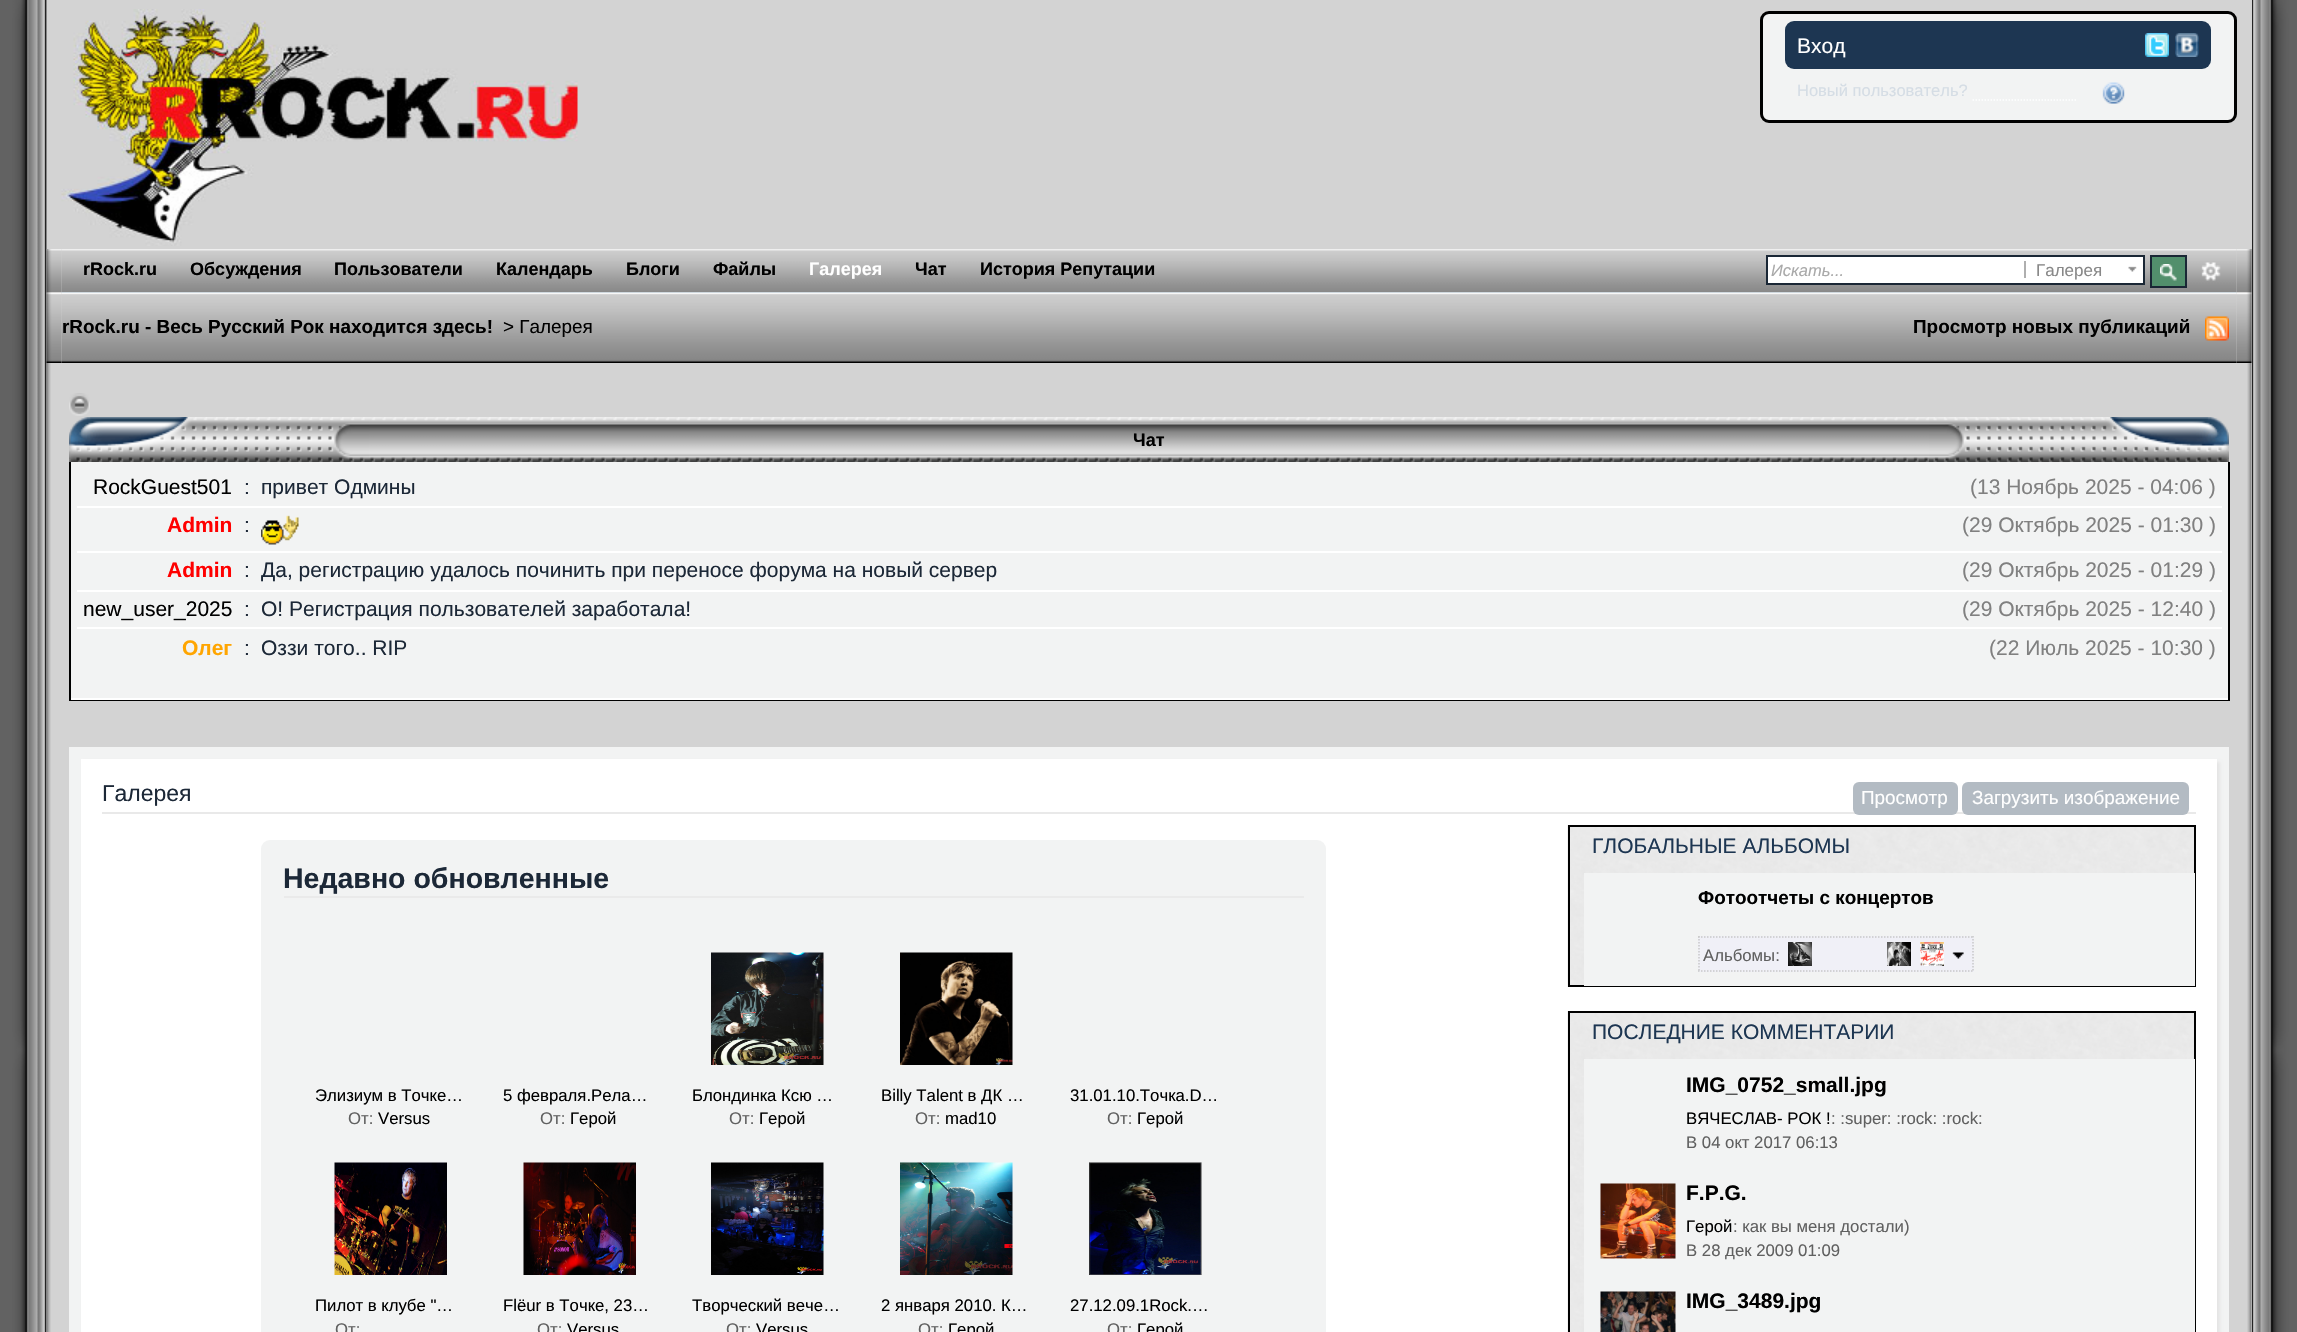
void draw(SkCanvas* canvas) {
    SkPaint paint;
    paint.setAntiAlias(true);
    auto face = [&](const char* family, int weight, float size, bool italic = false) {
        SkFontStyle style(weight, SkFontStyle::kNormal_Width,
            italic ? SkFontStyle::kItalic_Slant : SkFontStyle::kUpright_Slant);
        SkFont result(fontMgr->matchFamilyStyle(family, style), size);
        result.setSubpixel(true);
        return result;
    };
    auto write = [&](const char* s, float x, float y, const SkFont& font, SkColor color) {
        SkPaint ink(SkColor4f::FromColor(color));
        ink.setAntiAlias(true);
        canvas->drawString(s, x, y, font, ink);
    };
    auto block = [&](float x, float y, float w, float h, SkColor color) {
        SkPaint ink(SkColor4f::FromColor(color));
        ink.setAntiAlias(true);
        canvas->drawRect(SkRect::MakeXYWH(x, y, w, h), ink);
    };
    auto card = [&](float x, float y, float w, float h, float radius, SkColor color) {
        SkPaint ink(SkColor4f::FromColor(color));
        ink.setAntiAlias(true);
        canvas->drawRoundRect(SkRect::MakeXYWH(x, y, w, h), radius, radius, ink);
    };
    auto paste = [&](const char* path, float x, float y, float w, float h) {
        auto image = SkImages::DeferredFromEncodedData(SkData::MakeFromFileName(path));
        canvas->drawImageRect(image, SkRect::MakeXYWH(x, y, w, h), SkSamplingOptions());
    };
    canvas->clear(SK_ColorWHITE);
    paste("pic1.png", 0, 0, 47, 1332);
    paste("pic2.png", 2252, 0, 45, 1332);
    block(51, 249, 2201, 1083, SkColorSetRGB(211, 211, 211));
    paste("pic3.png", 46, 0, 5, 1332);
    paste("pic4.png", 2247, 249, 5, 1083);
    block(47, 0, 2205, 249, SkColorSetRGB(211, 211, 211));
    paste("pic5.png", 61, 9, 517, 237);
    paint.setColor(SkColorSetRGB(242, 243, 243));
    canvas->drawRoundRect(SkRect::MakeXYWH(1761.5f, 12.5f, 474, 109), 7.5f, 7.5f, paint);
    paint.setStyle(SkPaint::kStroke_Style);
    paint.setStrokeWidth(3);
    paint.setColor(SK_ColorBLACK);
    canvas->drawRoundRect(SkRect::MakeXYWH(1761.5f, 12.5f, 474, 109), 7.5f, 7.5f, paint);
    card(1785, 21, 426, 48, 9, SkColorSetRGB(29, 54, 82));
    auto kFont1 = face("Liberation Sans", 400, 21);
    write("Вход", 1797, 53, kFont1, SK_ColorWHITE);
    paste("pic6.png", 2145, 33, 24, 24);
    paste("pic7.png", 2175, 33, 24, 24);
    auto kFont2 = face("Liberation Sans", 400, 16.5f);
    write("Новый пользователь?", 1797, 96, kFont2, SkColorSetRGB(213, 221, 229));
    paste("pic8.png", 2102, 82, 23, 22);
    paint.setStrokeWidth(1.5f);
    paint.setColor(SK_ColorWHITE);
    paint.setPathEffect(SkDashPathEffect::Make({{1.5f, 1.5f}}, 0));
    canvas->drawPath(SkPathBuilder().moveTo(1972.5f, 100).lineTo(2076, 100).detach(), paint);
    paint.setPathEffect(nullptr);
    paste("pic9.png", 46, 249, 16, 44);
    paste("pic10.png", 2236, 249, 16, 44);
    paste("pic11.png", 61, 249, 2176, 44);
    auto kFont3 = face("Liberation Sans", 700, 18);
    write("rRock.ru", 83, 275, kFont3, SK_ColorBLACK);
    write("Обсуждения", 190, 275, kFont3, SK_ColorBLACK);
    write("Пользователи", 334, 275, kFont3, SK_ColorBLACK);
    write("Календарь", 496, 275, kFont3, SK_ColorBLACK);
    write("Блоги", 626, 275, kFont3, SK_ColorBLACK);
    write("Файлы", 713, 275, kFont3, SK_ColorBLACK);
    write("Галерея", 809, 275, kFont3, SK_ColorWHITE);
    write("Чат", 915, 275, kFont3, SK_ColorBLACK);
    write("История Репутации", 980, 275, kFont3, SK_ColorBLACK);
    paint.setStyle(SkPaint::kFill_Style);
    canvas->drawRect(SkRect::MakeXYWH(1767, 256, 377, 28), paint);
    paint.setStyle(SkPaint::kStroke_Style);
    paint.setStrokeWidth(2);
    paint.setColor(SkColorSetRGB(26, 39, 53));
    canvas->drawRect(SkRect::MakeXYWH(1767, 256, 377, 28), paint);
    auto kFont4 = face("Liberation Sans", 400, 16.5f, true);
    write("Искать...", 1771, 276, kFont4, SkColorSetRGB(169, 169, 169));
    paste("pic12.png", 2128, 266, 9, 6);
    block(2024, 261, 2, 17, SkColorSetRGB(175, 175, 175));
    auto kFont5 = face("Liberation Sans", 400, 17);
    write("Галерея", 2036, 276, kFont5, SkColorSetRGB(136, 136, 136));
    block(2152, 257, 33, 29, SkColorSetRGB(82, 143, 108));
    paste("pic13.png", 2160, 264, 17, 17);
    canvas->drawRect(SkRect::MakeXYWH(2151, 256, 35, 31), paint);
    paste("pic14.png", 2201, 262, 20, 19);
    paste("pic15.png", 46, 292, 16, 71);
    paste("pic16.png", 2236, 292, 16, 71);
    paste("pic17.png", 61, 292, 2176, 71);
    auto kFont6 = face("Liberation Sans", 700, 18.9f);
    write("rRock.ru - Весь Русский Рок находится здесь!", 62, 333, kFont6, SK_ColorBLACK);
    auto kFont7 = face("Liberation Sans", 400, 18.9f);
    write("> Галерея", 503, 333, kFont7, SK_ColorBLACK);
    write("Просмотр новых публикаций", 1913, 333, kFont6, SK_ColorBLACK);
    paste("pic18.png", 2205, 316, 24, 25);
    paste("pic19.png", 69, 417, 300, 45);
    paste("pic20.png", 1929, 417, 300, 45);
    paste("pic21.png", 369, 417, 1560, 45);
    paste("pic22.png", 69, 393, 21, 23);
    write("Чат", 1133, 446, kFont3, SK_ColorBLACK);
    block(2228, 462, 2, 239, SK_ColorBLACK);
    block(69, 699, 2160, 2, SK_ColorBLACK);
    block(69, 462, 2, 239, SK_ColorBLACK);
    block(71, 462, 2157, 236, SkColorSetRGB(242, 243, 243));
    block(71, 698, 2157, 2, SK_ColorWHITE);
    write("RockGuest501", 93, 494, kFont1, SK_ColorBLACK);
    write(":", 244, 494, kFont1, SkColorSetRGB(28, 40, 55));
    block(77, 506, 2145, 2, SK_ColorWHITE);
    write("привет Одмины", 261, 494, kFont1, SkColorSetRGB(28, 40, 55));
    write("(13 Ноябрь 2025 - 04:06 )", 1970, 494, kFont1, SkColorSetRGB(128, 128, 128));
    auto kFont8 = face("Liberation Sans", 700, 21);
    write("Admin", 167, 532, kFont8, SkColorSetRGB(255, 0, 0));
    write(":", 244, 532, kFont1, SkColorSetRGB(28, 40, 55));
    block(77, 551, 2145, 2, SK_ColorWHITE);
    paste("pic23.png", 261, 515, 38, 30);
    write("(29 Октябрь 2025 - 01:30 )", 1962, 532, kFont1, SkColorSetRGB(128, 128, 128));
    write("Admin", 167, 577, kFont8, SkColorSetRGB(255, 0, 0));
    write(":", 244, 577, kFont1, SkColorSetRGB(28, 40, 55));
    block(77, 590, 2145, 2, SK_ColorWHITE);
    write("Да, регистрацию удалось починить при переносе форума на новый сервер", 261, 577, kFont1, SkColorSetRGB(28, 40, 55));
    write("(29 Октябрь 2025 - 01:29 )", 1962, 577, kFont1, SkColorSetRGB(128, 128, 128));
    write("new_user_2025", 83, 616, kFont1, SK_ColorBLACK);
    write(":", 244, 616, kFont1, SkColorSetRGB(28, 40, 55));
    block(77, 627, 2145, 2, SK_ColorWHITE);
    write("О! Регистрация пользователей заработала!", 261, 616, kFont1, SkColorSetRGB(28, 40, 55));
    write("(29 Октябрь 2025 - 12:40 )", 1962, 616, kFont1, SkColorSetRGB(128, 128, 128));
    write("Oлег", 182, 655, kFont8, SkColorSetRGB(255, 165, 0));
    write(":", 244, 655, kFont1, SkColorSetRGB(28, 40, 55));
    write("Оззи того.. RIP", 261, 655, kFont1, SkColorSetRGB(28, 40, 55));
    write("(22 Июль 2025 - 10:30 )", 1989, 655, kFont1, SkColorSetRGB(128, 128, 128));
    block(69, 747, 2160, 585, SkColorSetRGB(242, 243, 243));
    paint.setStyle(SkPaint::kFill_Style);
    paint.setColor(SkColorSetRGB(229, 229, 229));
    paint.setMaskFilter(SkMaskFilter::MakeBlur(kNormal_SkBlurStyle, 1.5f));
    canvas->drawRect(SkRect::MakeXYWH(84, 762, 2136, 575), paint);
    paint.setMaskFilter(nullptr);
    block(81, 759, 2136, 573, SK_ColorWHITE);
    block(102, 812, 2094, 2, SkColorSetRGB(233, 233, 233));
    auto kFont9 = face("Liberation Sans", 400, 23);
    write("Галерея", 102, 801, kFont9, SkColorSetRGB(28, 40, 55));
    card(1853, 782, 105, 33, 6, SkColorSetRGB(179, 187, 195));
    write("Просмотр", 1861, 804, kFont7, SK_ColorWHITE);
    card(1962, 782, 227, 33, 6, SkColorSetRGB(179, 187, 195));
    write("Загрузить изображение", 1972, 804, kFont7, SK_ColorWHITE);
    card(261, 840, 1065, 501, 9, SkColorSetRGB(242, 243, 243));
    block(284, 896, 1020, 2, SkColorSetRGB(234, 234, 234));
    auto kFont10 = face("Liberation Sans", 700, 28.5f);
    write("Недавно обновленные", 283, 888, kFont10, SkColorSetRGB(28, 40, 55));
    auto kFont11 = face("Liberation Sans", 400, 16.75f);
    write("Элизиум в Точке…", 315, 1101, kFont11, SK_ColorBLACK);
    write("От:", 348, 1124, kFont11, SkColorSetRGB(96, 96, 96));
    write("Versus", 378, 1124, kFont11, SK_ColorBLACK);
    write("5 февраля.Рела…", 503, 1101, kFont11, SK_ColorBLACK);
    write("От:", 540, 1124, kFont11, SkColorSetRGB(96, 96, 96));
    write("Герой", 570, 1124, kFont11, SK_ColorBLACK);
    paste("pic24.png", 711, 952, 113, 113);
    write("Блондинка Ксю …", 692, 1101, kFont11, SK_ColorBLACK);
    write("От:", 729, 1124, kFont11, SkColorSetRGB(96, 96, 96));
    write("Герой", 759, 1124, kFont11, SK_ColorBLACK);
    paste("pic25.png", 900, 952, 113, 113);
    write("Billy Talent в ДК …", 881, 1101, kFont11, SK_ColorBLACK);
    write("От:", 915, 1124, kFont11, SkColorSetRGB(96, 96, 96));
    write("mad10", 945, 1124, kFont11, SK_ColorBLACK);
    write("31.01.10.Точка.D…", 1070, 1101, kFont11, SK_ColorBLACK);
    write("От:", 1107, 1124, kFont11, SkColorSetRGB(96, 96, 96));
    write("Герой", 1137, 1124, kFont11, SK_ColorBLACK);
    paste("pic26.png", 334, 1162, 113, 113);
    write("Пилот в клубе \"…", 315, 1311, kFont11, SK_ColorBLACK);
    write("От:", 335, 1335, kFont11, SkColorSetRGB(96, 96, 96));
    paste("pic27.png", 523, 1162, 113, 113);
    write("Flёur в Точке, 23…", 503, 1311, kFont11, SK_ColorBLACK);
    write("От:", 537, 1335, kFont11, SkColorSetRGB(96, 96, 96));
    write("Versus", 567, 1335, kFont11, SK_ColorBLACK);
    paste("pic28.png", 711, 1162, 113, 113);
    write("Творческий вече…", 692, 1311, kFont11, SK_ColorBLACK);
    write("От:", 726, 1335, kFont11, SkColorSetRGB(96, 96, 96));
    write("Versus", 756, 1335, kFont11, SK_ColorBLACK);
    paste("pic29.png", 900, 1162, 113, 113);
    write("2 января 2010. К…", 881, 1311, kFont11, SK_ColorBLACK);
    write("От:", 918, 1335, kFont11, SkColorSetRGB(96, 96, 96));
    write("Герой", 948, 1335, kFont11, SK_ColorBLACK);
    paste("pic30.png", 1089, 1162, 113, 113);
    write("27.12.09.1Rock.…", 1070, 1311, kFont11, SK_ColorBLACK);
    write("От:", 1107, 1335, kFont11, SkColorSetRGB(96, 96, 96));
    write("Герой", 1137, 1335, kFont11, SK_ColorBLACK);
    paste("pic31.png", 1567, 825, 627, 162);
    paint.setStyle(SkPaint::kStroke_Style);
    paint.setColor(SK_ColorBLACK);
    canvas->drawRect(SkRect::MakeXYWH(1569, 826, 626, 160), paint);
    write("ГЛОБАЛЬНЫЕ АЛЬБОМЫ", 1592, 853, kFont1, SkColorSetRGB(29, 54, 82));
    block(1584, 873, 611, 113, SkColorSetRGB(242, 243, 243));
    write("Фотоотчеты с концертов", 1698, 904, kFont6, SK_ColorBLACK);
    block(1698, 936, 276, 36, SkColorSetRGB(240, 240, 247));
    paste("pic32.png", 1952, 952, 12, 7);
    paint.setStrokeWidth(1.5f);
    paint.setColor(SkColorSetRGB(201, 201, 201));
    paint.setPathEffect(SkDashPathEffect::Make({{1.5f, 1.5f}}, 0));
    canvas->drawPath(SkPathBuilder().moveTo(1698, 937).lineTo(1974, 937).detach(), paint);
    paint.setPathEffect(nullptr);
    paint.setPathEffect(SkDashPathEffect::Make({{1.5f, 1.5f}}, 0));
    canvas->drawPath(SkPathBuilder().moveTo(1973, 936).lineTo(1973, 972).detach(), paint);
    paint.setPathEffect(nullptr);
    paint.setPathEffect(SkDashPathEffect::Make({{1.5f, 1.5f}}, 0));
    canvas->drawPath(SkPathBuilder().moveTo(1698, 971).lineTo(1974, 971).detach(), paint);
    paint.setPathEffect(nullptr);
    paint.setPathEffect(SkDashPathEffect::Make({{1.5f, 1.5f}}, 0));
    canvas->drawPath(SkPathBuilder().moveTo(1699, 936).lineTo(1699, 972).detach(), paint);
    paint.setPathEffect(nullptr);
    write("Альбомы:", 1703, 961, kFont11, SkColorSetRGB(96, 96, 96));
    paste("pic33.png", 1788, 942, 24, 24);
    paste("pic34.png", 1887, 942, 24, 24);
    paste("pic35.png", 1920, 942, 24, 24);
    paste("pic36.png", 1567, 1011, 627, 321);
    paint.setStrokeWidth(2);
    paint.setColor(SK_ColorBLACK);
    canvas->drawRect(SkRect::MakeXYWH(1569, 1012, 626, 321), paint);
    write("ПОСЛЕДНИЕ КОММЕНТАРИИ", 1592, 1039, kFont1, SkColorSetRGB(29, 54, 82));
    block(1584, 1059, 611, 273, SkColorSetRGB(242, 243, 243));
    write("IMG_0752_small.jpg", 1686, 1092, kFont8, SK_ColorBLACK);
    write("ВЯЧЕСЛАВ- РОК !", 1686, 1124, kFont11, SK_ColorBLACK);
    write(": :super: :rock: :rock:", 1831, 1124, kFont11, SkColorSetRGB(96, 96, 96));
    write("В 04 окт 2017 06:13", 1686, 1148, kFont11, SkColorSetRGB(96, 96, 96));
    paste("pic37.png", 1600, 1183, 76, 76);
    write("F.P.G.", 1686, 1200, kFont8, SK_ColorBLACK);
    write("Герой", 1686, 1232, kFont11, SK_ColorBLACK);
    write(": как вы меня достали)", 1733, 1232, kFont11, SkColorSetRGB(96, 96, 96));
    write("В 28 дек 2009 01:09", 1686, 1256, kFont11, SkColorSetRGB(96, 96, 96));
    paste("pic38.png", 1600, 1291, 76, 41);
    write("IMG_3489.jpg", 1686, 1308, kFont8, SK_ColorBLACK);
}
